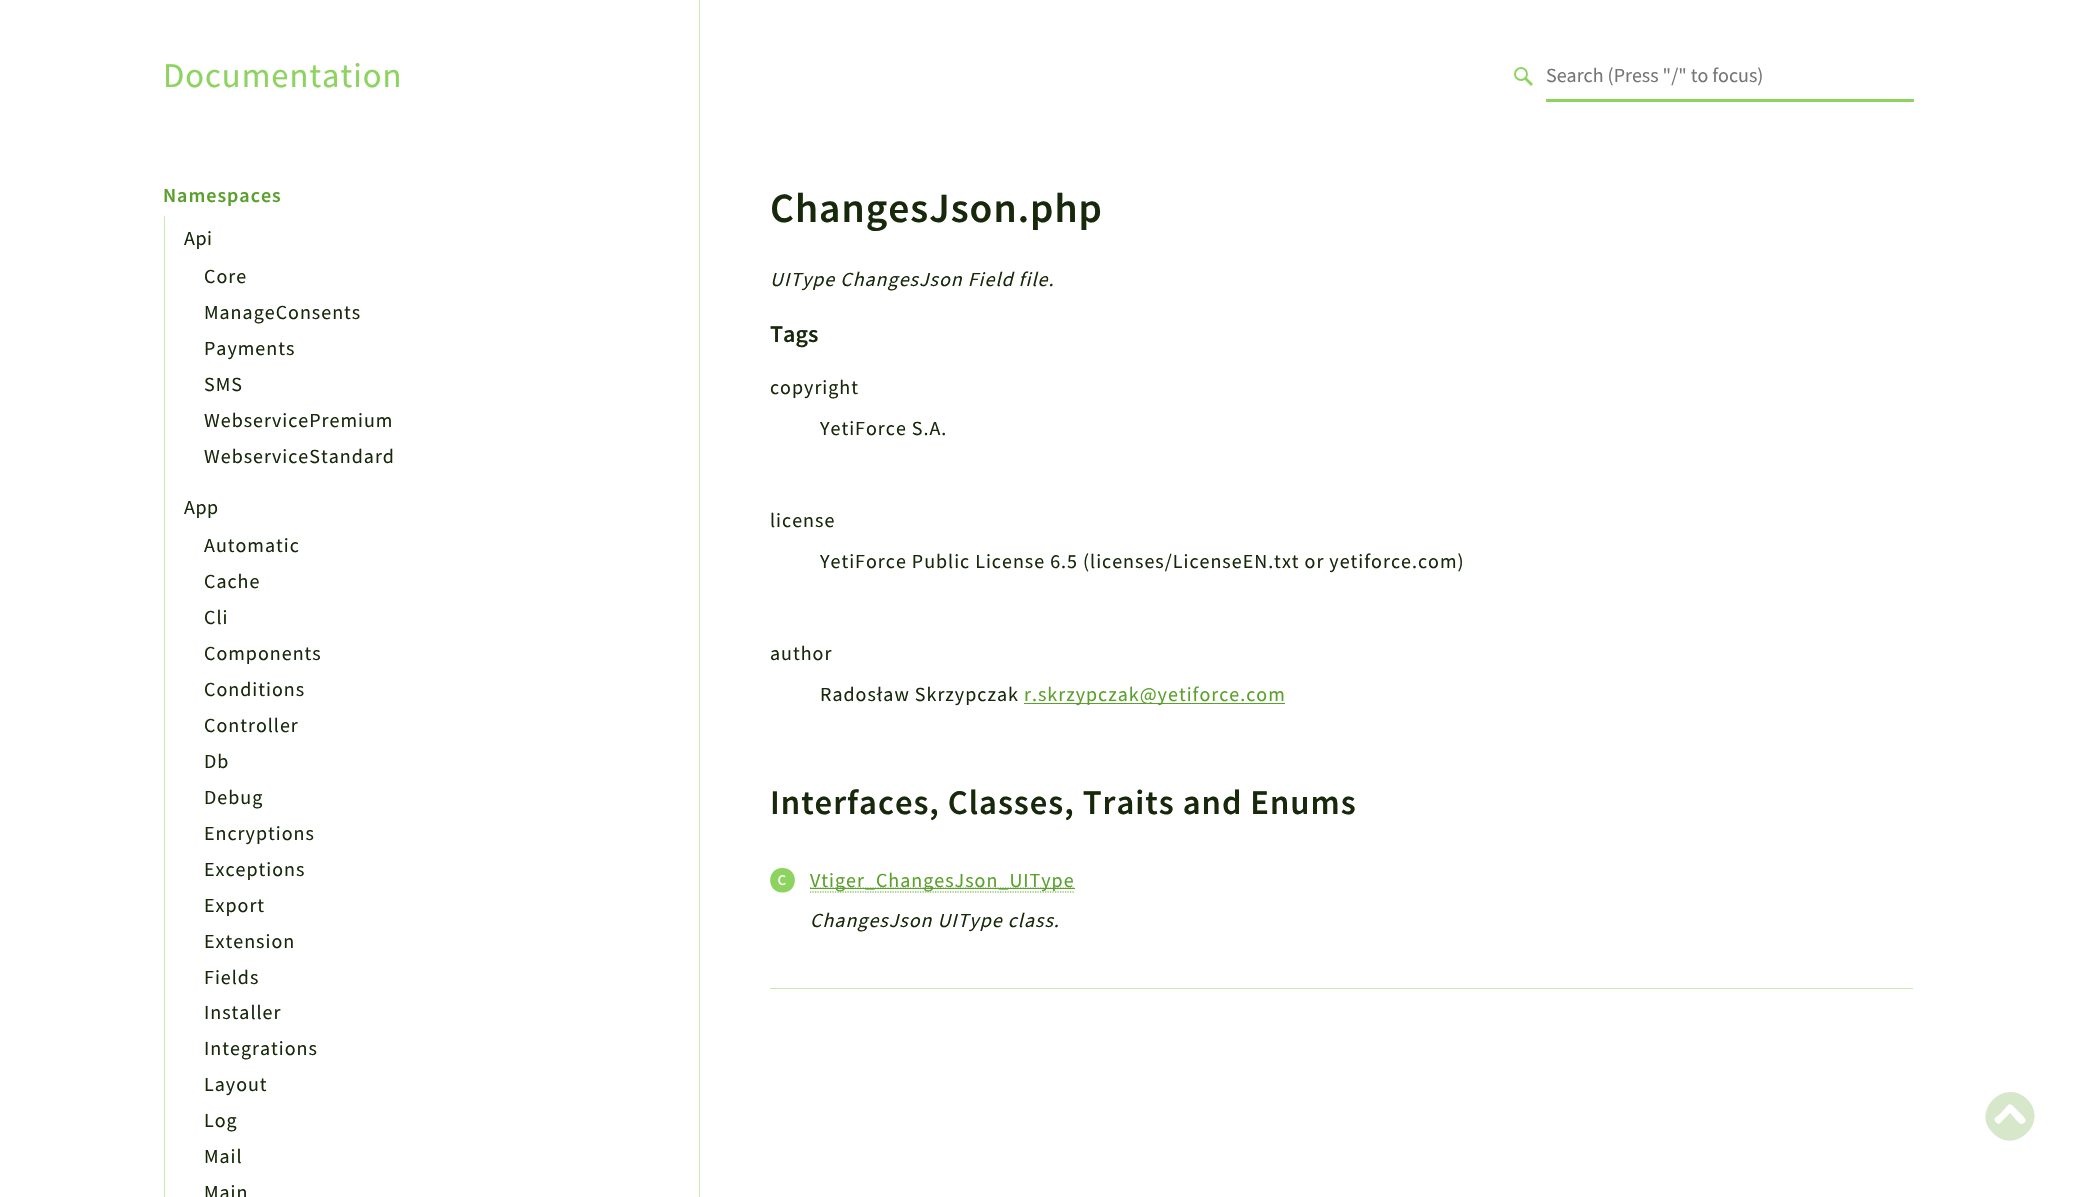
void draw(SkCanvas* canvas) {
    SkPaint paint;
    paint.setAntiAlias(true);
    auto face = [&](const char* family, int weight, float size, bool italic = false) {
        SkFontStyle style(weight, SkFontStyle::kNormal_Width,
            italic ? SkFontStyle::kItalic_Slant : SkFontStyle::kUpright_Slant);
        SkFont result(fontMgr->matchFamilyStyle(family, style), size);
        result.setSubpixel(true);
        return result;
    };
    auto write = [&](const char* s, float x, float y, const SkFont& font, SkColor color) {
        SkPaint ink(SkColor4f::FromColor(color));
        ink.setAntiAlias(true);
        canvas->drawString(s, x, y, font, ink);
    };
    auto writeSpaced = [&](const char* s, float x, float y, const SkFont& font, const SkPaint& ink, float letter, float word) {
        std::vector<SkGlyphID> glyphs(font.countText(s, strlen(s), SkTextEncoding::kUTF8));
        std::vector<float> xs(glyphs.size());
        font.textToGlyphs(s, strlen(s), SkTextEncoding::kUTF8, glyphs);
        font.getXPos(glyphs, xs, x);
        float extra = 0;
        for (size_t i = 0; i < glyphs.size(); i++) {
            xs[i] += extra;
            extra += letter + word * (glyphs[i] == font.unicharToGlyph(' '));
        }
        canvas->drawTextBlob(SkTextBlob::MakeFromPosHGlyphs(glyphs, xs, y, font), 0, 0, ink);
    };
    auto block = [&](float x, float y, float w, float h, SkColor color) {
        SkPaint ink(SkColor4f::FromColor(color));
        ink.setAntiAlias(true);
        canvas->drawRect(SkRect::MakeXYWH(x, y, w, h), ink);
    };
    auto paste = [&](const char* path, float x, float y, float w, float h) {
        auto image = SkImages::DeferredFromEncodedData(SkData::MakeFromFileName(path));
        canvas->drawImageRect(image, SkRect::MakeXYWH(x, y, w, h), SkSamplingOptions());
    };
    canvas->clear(SK_ColorWHITE);
    block(699, 0, 1, 1197, SkColorSetRGB(198, 233, 175));
    auto kFont1 = face("Source Sans Pro", 400, 34.6f);
    paint.setColor(SkColorSetRGB(141, 211, 95));
    writeSpaced("Documentation", 163, 87, kFont1, paint, 1, 0);
    paint.setStyle(SkPaint::kStroke_Style);
    paint.setStrokeWidth(1.9f);
    canvas->drawCircle(1521, 74, 6, paint);
    paint.setStrokeWidth(2.9f);
    canvas->drawPath(SkPathBuilder().moveTo(1525.5f, 78.5f).lineTo(1532, 85).detach(), paint);
    block(1546, 99, 368, 3, SkColorSetRGB(141, 211, 95));
    auto kFont2 = face("Source Sans Pro", 400, 20);
    write("Search (Press \"/\" to focus)", 1546, 82, kFont2, SkColorSetRGB(117, 117, 117));
    auto kFont3 = face("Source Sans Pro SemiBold", 600, 20);
    paint.setStyle(SkPaint::kFill_Style);
    paint.setColor(SkColorSetRGB(90, 160, 44));
    writeSpaced("Namespaces", 163, 202, kFont3, paint, 1, 0);
    block(164, 216, 1, 981, SkColorSetRGB(198, 233, 175));
    paint.setColor(SkColorSetRGB(23, 40, 11));
    writeSpaced("Api", 184, 245, kFont2, paint, 0.5f, 0);
    writeSpaced("Core", 204, 283, kFont2, paint, 1, 0);
    writeSpaced("ManageConsents", 204, 319, kFont2, paint, 1, 0);
    writeSpaced("Payments", 204, 355, kFont2, paint, 1, 0);
    writeSpaced("SMS", 204, 391, kFont2, paint, 1, 0);
    writeSpaced("WebservicePremium", 204, 427, kFont2, paint, 1, 0);
    writeSpaced("WebserviceStandard", 204, 463, kFont2, paint, 1, 0);
    writeSpaced("App", 184, 514, kFont2, paint, 0.5f, 0);
    writeSpaced("Automatic", 204, 552, kFont2, paint, 1, 0);
    writeSpaced("Cache", 204, 588, kFont2, paint, 1, 0);
    writeSpaced("Cli", 204, 624, kFont2, paint, 1, 0);
    writeSpaced("Components", 204, 660, kFont2, paint, 1, 0);
    writeSpaced("Conditions", 204, 696, kFont2, paint, 1, 0);
    writeSpaced("Controller", 204, 732, kFont2, paint, 1, 0);
    writeSpaced("Db", 204, 768, kFont2, paint, 1, 0);
    writeSpaced("Debug", 204, 804, kFont2, paint, 1, 0);
    writeSpaced("Encryptions", 204, 840, kFont2, paint, 1, 0);
    writeSpaced("Exceptions", 204, 876, kFont2, paint, 1, 0);
    writeSpaced("Export", 204, 912, kFont2, paint, 1, 0);
    writeSpaced("Extension", 204, 948, kFont2, paint, 1, 0);
    writeSpaced("Fields", 204, 984, kFont2, paint, 1, 0);
    writeSpaced("Installer", 204, 1019, kFont2, paint, 1, 0);
    writeSpaced("Integrations", 204, 1055, kFont2, paint, 1, 0);
    writeSpaced("Layout", 204, 1091, kFont2, paint, 1, 0);
    writeSpaced("Log", 204, 1127, kFont2, paint, 1, 0);
    writeSpaced("Mail", 204, 1163, kFont2, paint, 1, 0);
    writeSpaced("Main", 204, 1199, kFont2, paint, 1, 0);
    block(770, 988, 1143, 1, SkColorSetRGB(198, 233, 175));
    auto kFont4 = face("Source Sans Pro SemiBold", 600, 41.5f);
    writeSpaced("ChangesJson.php", 770, 222, kFont4, paint, 1, 0);
    auto kFont5 = face("Source Sans Pro", 400, 20, true);
    writeSpaced("UIType ChangesJson Field file.", 770, 286, kFont5, paint, 1, 0);
    auto kFont6 = face("Source Sans Pro SemiBold", 600, 24);
    write("Tags", 770, 342, kFont6, SkColorSetRGB(23, 40, 11));
    writeSpaced("copyright", 770, 394, kFont2, paint, 1, 0);
    writeSpaced("YetiForce S.A.", 820, 435, kFont2, paint, 1, 0);
    writeSpaced("license", 770, 527, kFont2, paint, 1, 0);
    writeSpaced("YetiForce Public License 6.5 (licenses/LicenseEN.txt or yetiforce.com)", 820, 568, kFont2, paint, 1, 0);
    writeSpaced("author", 770, 660, kFont2, paint, 1, 0);
    writeSpaced("Radosław Skrzypczak", 820, 701, kFont2, paint, 1, 0);
    block(1024, 703, 261, 1, SkColorSetRGB(90, 160, 44));
    paint.setColor(SkColorSetRGB(90, 160, 44));
    writeSpaced("r.skrzypczak@yetiforce.com", 1024, 701, kFont2, paint, 1, 0);
    auto kFont7 = face("Source Sans Pro SemiBold", 600, 34.6f);
    paint.setColor(SkColorSetRGB(23, 40, 11));
    writeSpaced("Interfaces, Classes, Traits and Enums", 770, 814, kFont7, paint, 1, 0);
    paint.setColor(SkColorSetRGB(141, 211, 95));
    canvas->drawPath(SkPathBuilder().moveTo(782.5f, 868).cubicTo(799, 868, 799, 892.5f, 782.5f, 892.5f).cubicTo(766, 892.5f, 766, 868, 782.5f, 868).close().detach(), paint);
    paste("pic1.png", 778, 875, 8, 11);
    paint.setStyle(SkPaint::kStroke_Style);
    paint.setStrokeWidth(1.2f);
    paint.setColor(SkColorSetRGB(90, 160, 44));
    paint.setPathEffect(SkDashPathEffect::Make({{1.25f, 1.25f}}, 0));
    canvas->drawPath(SkPathBuilder().moveTo(810, 892).lineTo(1075, 892).detach(), paint);
    paint.setPathEffect(nullptr);
    paint.setPathEffect(SkDashPathEffect::Make({{1.25f, 1.25f}}, 0));
    canvas->drawPath(SkPathBuilder().moveTo(810, 888).lineTo(1074.5f, 888).detach(), paint);
    paint.setPathEffect(nullptr);
    block(810, 888, 265, 1, SkColorSetRGB(90, 160, 44));
    paint.setStyle(SkPaint::kFill_Style);
    writeSpaced("Vtiger_ChangesJson_UIType", 810, 887, kFont2, paint, 1, 0);
    paint.setColor(SkColorSetRGB(23, 40, 11));
    writeSpaced("ChangesJson UIType class.", 810, 927, kFont5, paint, 1, 0);
    paint.setColor(SkColorSetRGB(214, 231, 202));
    canvas->drawPath(SkPathBuilder().moveTo(1993, 1133).cubicTo(1970, 1111, 2005, 1077, 2027, 1099).cubicTo(2050, 1122, 2015, 1156, 1993, 1133).close().moveTo(2008, 1105).lineTo(2000, 1114).cubicTo(1995, 1118, 1992, 1119, 1997, 1123).cubicTo(1999, 1126, 2002, 1121, 2003, 1120).lineTo(2010, 1113).cubicTo(2012, 1115, 2019, 1124, 2021, 1124).cubicTo(2023, 1124, 2024, 1123, 2025, 1122).cubicTo(2027, 1120, 2024, 1118, 2023, 1116).lineTo(2014, 1107).cubicTo(2013, 1106, 2010, 1103, 2008, 1105).close().detach(), paint);
}
